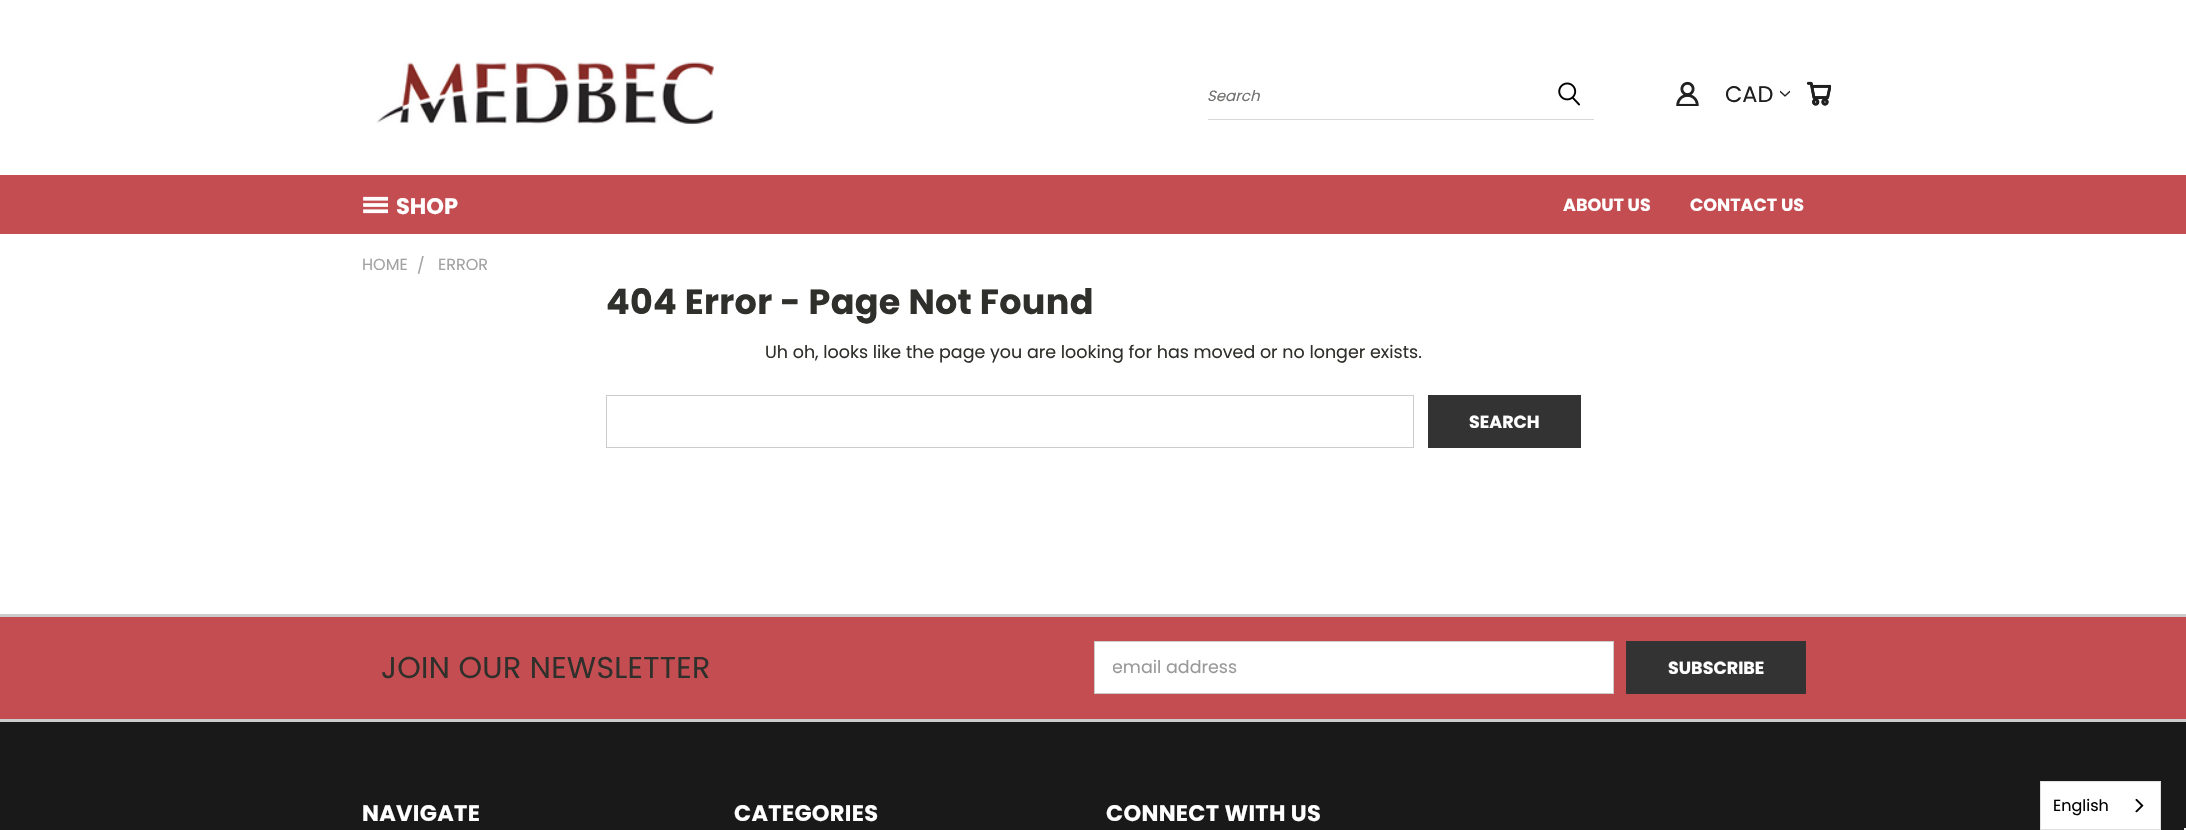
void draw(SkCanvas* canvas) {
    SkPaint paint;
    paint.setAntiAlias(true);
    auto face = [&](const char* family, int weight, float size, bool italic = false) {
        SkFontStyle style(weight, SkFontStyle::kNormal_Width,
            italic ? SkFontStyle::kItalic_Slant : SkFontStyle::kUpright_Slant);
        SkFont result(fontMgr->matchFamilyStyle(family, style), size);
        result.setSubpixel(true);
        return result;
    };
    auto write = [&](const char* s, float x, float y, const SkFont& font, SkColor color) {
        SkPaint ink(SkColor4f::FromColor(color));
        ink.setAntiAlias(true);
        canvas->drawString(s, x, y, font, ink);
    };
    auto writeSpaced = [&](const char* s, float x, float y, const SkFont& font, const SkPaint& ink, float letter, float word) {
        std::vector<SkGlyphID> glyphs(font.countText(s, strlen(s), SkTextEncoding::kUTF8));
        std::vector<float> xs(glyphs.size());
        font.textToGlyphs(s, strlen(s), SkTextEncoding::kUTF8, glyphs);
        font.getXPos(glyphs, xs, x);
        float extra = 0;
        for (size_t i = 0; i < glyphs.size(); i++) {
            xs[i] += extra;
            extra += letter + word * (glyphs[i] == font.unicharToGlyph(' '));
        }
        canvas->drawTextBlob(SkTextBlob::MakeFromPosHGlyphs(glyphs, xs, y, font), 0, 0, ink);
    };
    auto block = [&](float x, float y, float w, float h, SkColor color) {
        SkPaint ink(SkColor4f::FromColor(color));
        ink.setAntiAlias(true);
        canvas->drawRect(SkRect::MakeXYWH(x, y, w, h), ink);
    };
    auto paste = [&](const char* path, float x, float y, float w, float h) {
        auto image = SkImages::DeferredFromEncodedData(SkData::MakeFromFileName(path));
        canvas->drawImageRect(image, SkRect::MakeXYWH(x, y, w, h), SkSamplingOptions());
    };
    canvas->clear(SK_ColorWHITE);
    paste("pic1.png", 376, 62, 338, 63);
    block(1208, 119, 386, 1, SkColorSetRGB(215, 215, 215));
    auto kFont1 = face("Poppins", 400, 15, true);
    write("Search", 1207, 101, kFont1, SkColorSetRGB(112, 112, 110));
    paste("pic2.png", 1558, 82, 22, 24);
    paste("pic3.png", 1676, 81, 23, 25);
    auto kFont2 = face("Poppins", 400, 22.5f);
    write("CAD", 1725, 102, kFont2, SkColorSetRGB(31, 31, 31));
    paste("pic4.png", 1780, 90, 10, 7);
    paste("pic5.png", 1806, 81, 25, 25);
    block(0, 175, 2186, 59, SkColorSetRGB(195, 77, 80));
    paste("pic6.png", 363, 196, 25, 18);
    auto kFont3 = face("Poppins", 700, 22.5f);
    write("SHOP", 396, 214, kFont3, SK_ColorWHITE);
    auto kFont4 = face("Poppins", 700, 17.5f);
    write("ABOUT US", 1563, 211, kFont4, SK_ColorWHITE);
    write("CONTACT US", 1690, 211, kFont4, SK_ColorWHITE);
    auto kFont5 = face("Poppins", 400, 16);
    write("HOME", 362, 270, kFont5, SkColorSetRGB(162, 162, 162));
    write("/", 417, 271, kFont5, SkColorSetRGB(162, 162, 162));
    write("ERROR", 438, 270, kFont5, SkColorSetRGB(162, 162, 162));
    auto kFont6 = face("Poppins", 700, 35);
    paint.setColor(SkColorSetRGB(47, 47, 43));
    writeSpaced("404 Error - Page Not Found", 606, 314, kFont6, paint, 0.3f, 0);
    auto kFont7 = face("Poppins", 400, 17.5f);
    write("Uh oh, looks like the page you are looking for has moved or no longer exists.", 765, 358, kFont7, SkColorSetRGB(47, 47, 43));
    paint.setStyle(SkPaint::kStroke_Style);
    paint.setStrokeWidth(1);
    paint.setColor(SkColorSetRGB(204, 204, 204));
    canvas->drawRect(SkRect::MakeXYWH(606.5f, 395.5f, 807, 52), paint);
    block(1428, 395, 153, 53, SkColorSetRGB(51, 51, 51));
    write("SEARCH", 1469, 428, kFont4, SK_ColorWHITE);
    block(0, 617, 2186, 102, SkColorSetRGB(195, 77, 80));
    block(0, 614, 2186, 3, SkColorSetRGB(205, 204, 204));
    auto kFont8 = face("Poppins", 400, 30);
    paint.setStyle(SkPaint::kFill_Style);
    paint.setColor(SkColorSetRGB(47, 47, 43));
    writeSpaced("JOIN OUR NEWSLETTER", 381, 678, kFont8, paint, 0.3f, 0);
    paint.setColor(SK_ColorWHITE);
    canvas->drawRect(SkRect::MakeXYWH(1094.5f, 641.5f, 519, 52), paint);
    paint.setStyle(SkPaint::kStroke_Style);
    paint.setColor(SkColorSetRGB(204, 204, 204));
    canvas->drawRect(SkRect::MakeXYWH(1094.5f, 641.5f, 519, 52), paint);
    canvas->save();
    canvas->clipRect(SkRect::MakeXYWH(1113, 655, 482, 26));
    write("email address", 1112, 673, kFont7, SkColorSetRGB(153, 153, 153));
    canvas->restore();
    block(1626, 641, 180, 53, SkColorSetRGB(51, 51, 51));
    write("SUBSCRIBE", 1668, 674, kFont4, SK_ColorWHITE);
    block(0, 722, 2186, 108, SkColorSetRGB(25, 25, 25));
    block(0, 719, 2186, 3, SkColorSetRGB(205, 204, 204));
    paint.setStyle(SkPaint::kFill_Style);
    paint.setColor(SK_ColorWHITE);
    writeSpaced("NAVIGATE", 362, 821, kFont3, paint, 0.3f, 0);
    writeSpaced("CATEGORIES", 734, 821, kFont3, paint, 0.3f, 0);
    writeSpaced("CONNECT WITH US", 1106, 821, kFont3, paint, 0.3f, 0);
    canvas->drawRect(SkRect::MakeXYWH(2040.5f, 781.5f, 120, 48), paint);
    paint.setStyle(SkPaint::kStroke_Style);
    paint.setColor(SkColorSetRGB(224, 224, 224));
    canvas->drawRect(SkRect::MakeXYWH(2040.5f, 781.5f, 120, 48), paint);
    write("English", 2053, 811, kFont5, SK_ColorBLACK);
    paste("pic7.png", 2135, 798, 9, 15);
    block(2184, 828, 2, 2, SkColorSetRGB(245, 245, 245));
}
